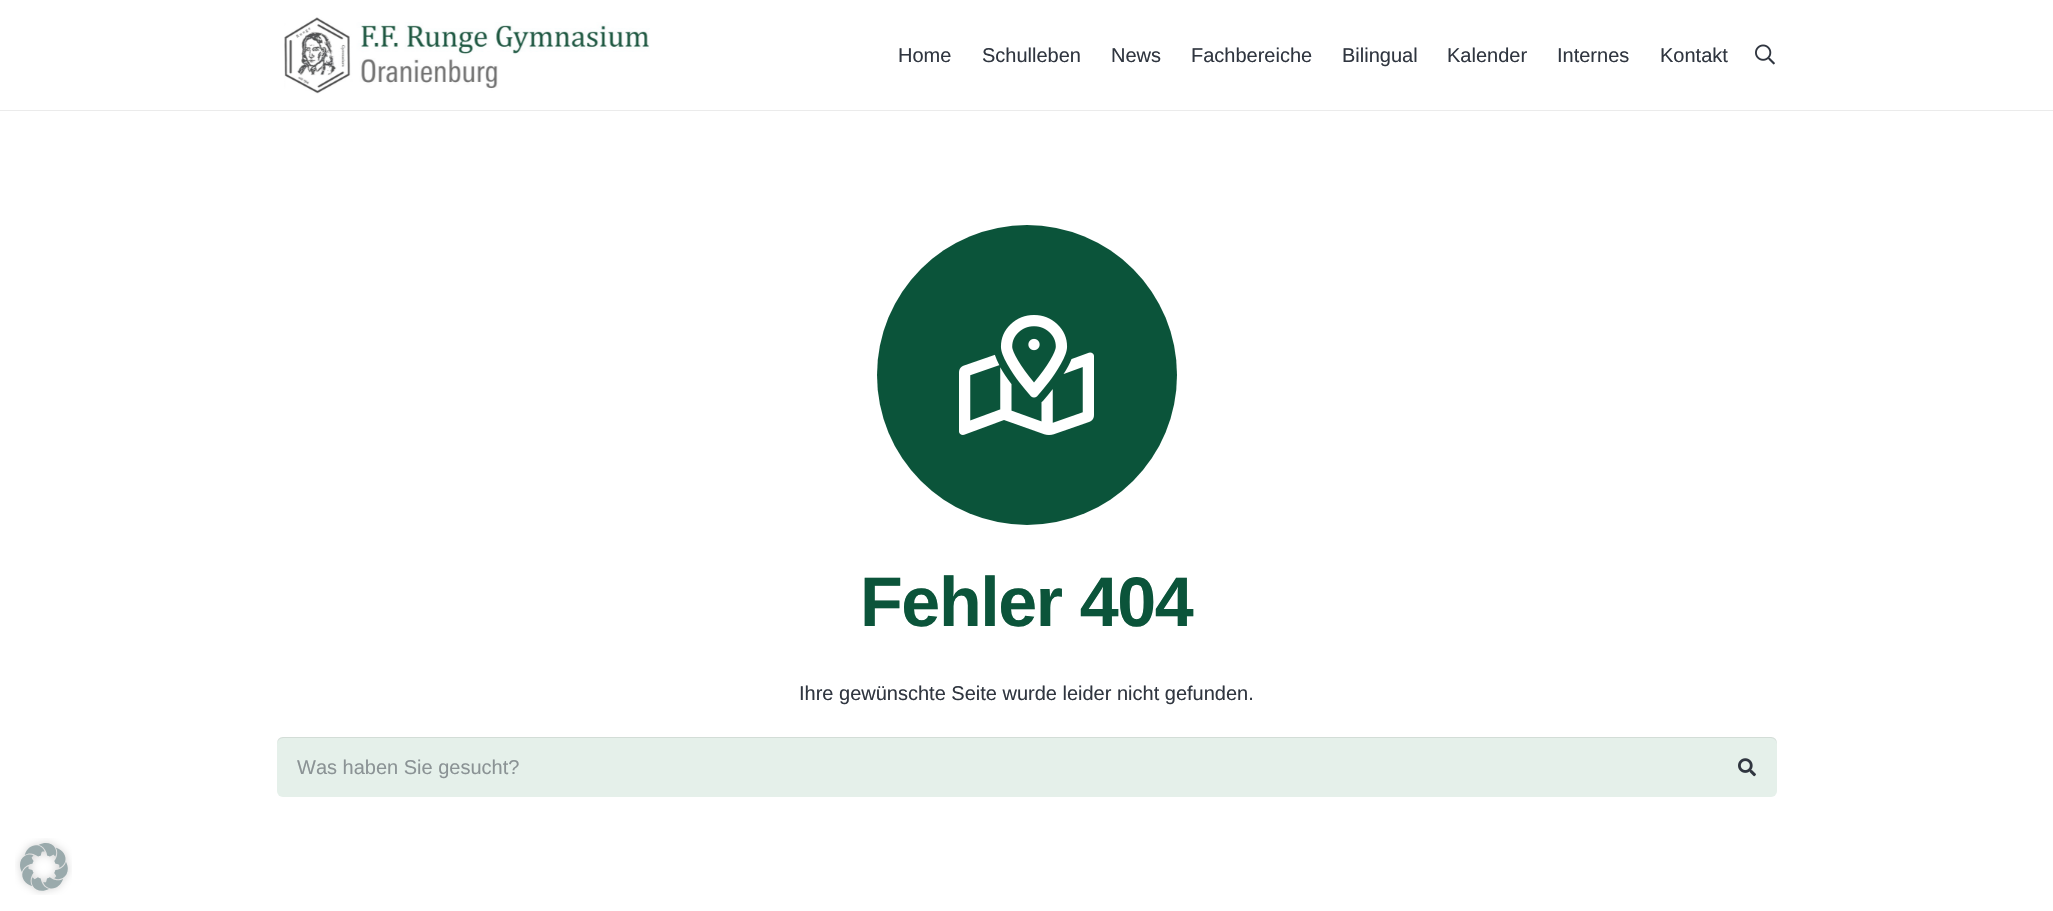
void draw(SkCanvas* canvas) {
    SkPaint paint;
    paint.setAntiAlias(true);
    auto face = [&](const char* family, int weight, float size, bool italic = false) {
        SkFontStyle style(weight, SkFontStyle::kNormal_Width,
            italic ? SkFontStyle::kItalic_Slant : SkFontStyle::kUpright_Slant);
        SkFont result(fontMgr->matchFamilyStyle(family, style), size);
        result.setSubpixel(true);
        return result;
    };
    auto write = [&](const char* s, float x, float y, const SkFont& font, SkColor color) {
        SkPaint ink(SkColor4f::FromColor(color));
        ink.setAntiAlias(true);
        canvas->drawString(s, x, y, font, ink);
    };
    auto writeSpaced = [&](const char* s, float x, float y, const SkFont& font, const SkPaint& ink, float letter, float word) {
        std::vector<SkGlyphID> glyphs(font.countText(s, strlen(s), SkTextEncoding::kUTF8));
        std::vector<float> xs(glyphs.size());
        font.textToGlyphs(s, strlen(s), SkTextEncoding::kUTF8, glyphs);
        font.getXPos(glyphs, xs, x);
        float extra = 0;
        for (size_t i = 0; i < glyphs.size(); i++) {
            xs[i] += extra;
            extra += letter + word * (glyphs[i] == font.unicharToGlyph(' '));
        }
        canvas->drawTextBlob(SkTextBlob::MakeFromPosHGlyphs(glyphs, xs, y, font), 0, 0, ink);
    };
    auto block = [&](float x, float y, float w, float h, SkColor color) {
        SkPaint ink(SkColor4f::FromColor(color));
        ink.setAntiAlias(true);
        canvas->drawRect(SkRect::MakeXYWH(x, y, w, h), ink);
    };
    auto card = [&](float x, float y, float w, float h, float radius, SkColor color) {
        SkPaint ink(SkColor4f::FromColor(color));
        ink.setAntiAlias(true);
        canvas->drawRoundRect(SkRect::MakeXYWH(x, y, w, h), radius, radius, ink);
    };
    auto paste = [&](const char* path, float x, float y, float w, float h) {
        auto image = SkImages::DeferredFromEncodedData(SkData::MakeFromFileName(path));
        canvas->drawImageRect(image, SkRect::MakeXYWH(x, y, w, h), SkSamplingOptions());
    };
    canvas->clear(SK_ColorWHITE);
    block(0, 110, 2053, 1, SkColorSetRGB(235, 235, 235));
    paste("pic1.png", 284, 17, 366, 77);
    auto kFont1 = face("Liberation Sans", 400, 20);
    write("Home", 898, 62, kFont1, SkColorSetRGB(48, 54, 64));
    write("Schulleben", 982, 62, kFont1, SkColorSetRGB(48, 54, 64));
    write("News", 1111, 62, kFont1, SkColorSetRGB(48, 54, 64));
    write("Fachbereiche", 1191, 62, kFont1, SkColorSetRGB(48, 54, 64));
    write("Bilingual", 1342, 62, kFont1, SkColorSetRGB(48, 54, 64));
    write("Kalender", 1447, 62, kFont1, SkColorSetRGB(48, 54, 64));
    write("Internes", 1557, 62, kFont1, SkColorSetRGB(48, 54, 64));
    write("Kontakt", 1660, 62, kFont1, SkColorSetRGB(48, 54, 64));
    paste("pic2.png", 1755, 44, 20, 21);
    paint.setColor(SkColorSetRGB(11, 84, 58));
    canvas->drawCircle(1027, 375, 150, paint);
    paste("pic3.png", 959, 315, 135, 120);
    auto kFont2 = face("Liberation Sans", 700, 70);
    writeSpaced("Fehler 404", 860, 626, kFont2, paint, -1.4f, 0);
    write("Ihre gewünschte Seite wurde leider nicht gefunden.", 799, 700, kFont1, SkColorSetRGB(48, 54, 64));
    card(277, 737, 1500, 60, 6, SkColorSetRGB(229, 240, 234));
    paint.setColor(SkColorSetARGB(20, 0, 0, 0));
    canvas->drawPath(SkPathBuilder().moveTo(283, 738).lineTo(1771, 738).cubicTo(1774, 738, 1777, 741, 1777, 744).cubicTo(1777, 740, 1775, 737, 1771, 737).lineTo(283, 737).cubicTo(279, 737, 277, 740, 277, 744).cubicTo(277, 741, 280, 738, 283, 738).close().detach(), paint);
    write("Was haben Sie gesucht?", 297, 774, kFont1, SkColorSetRGB(139, 147, 149));
    paste("pic4.png", 1738, 758, 18, 19);
    paste("pic5.png", 15, 838, 57, 57);
}
